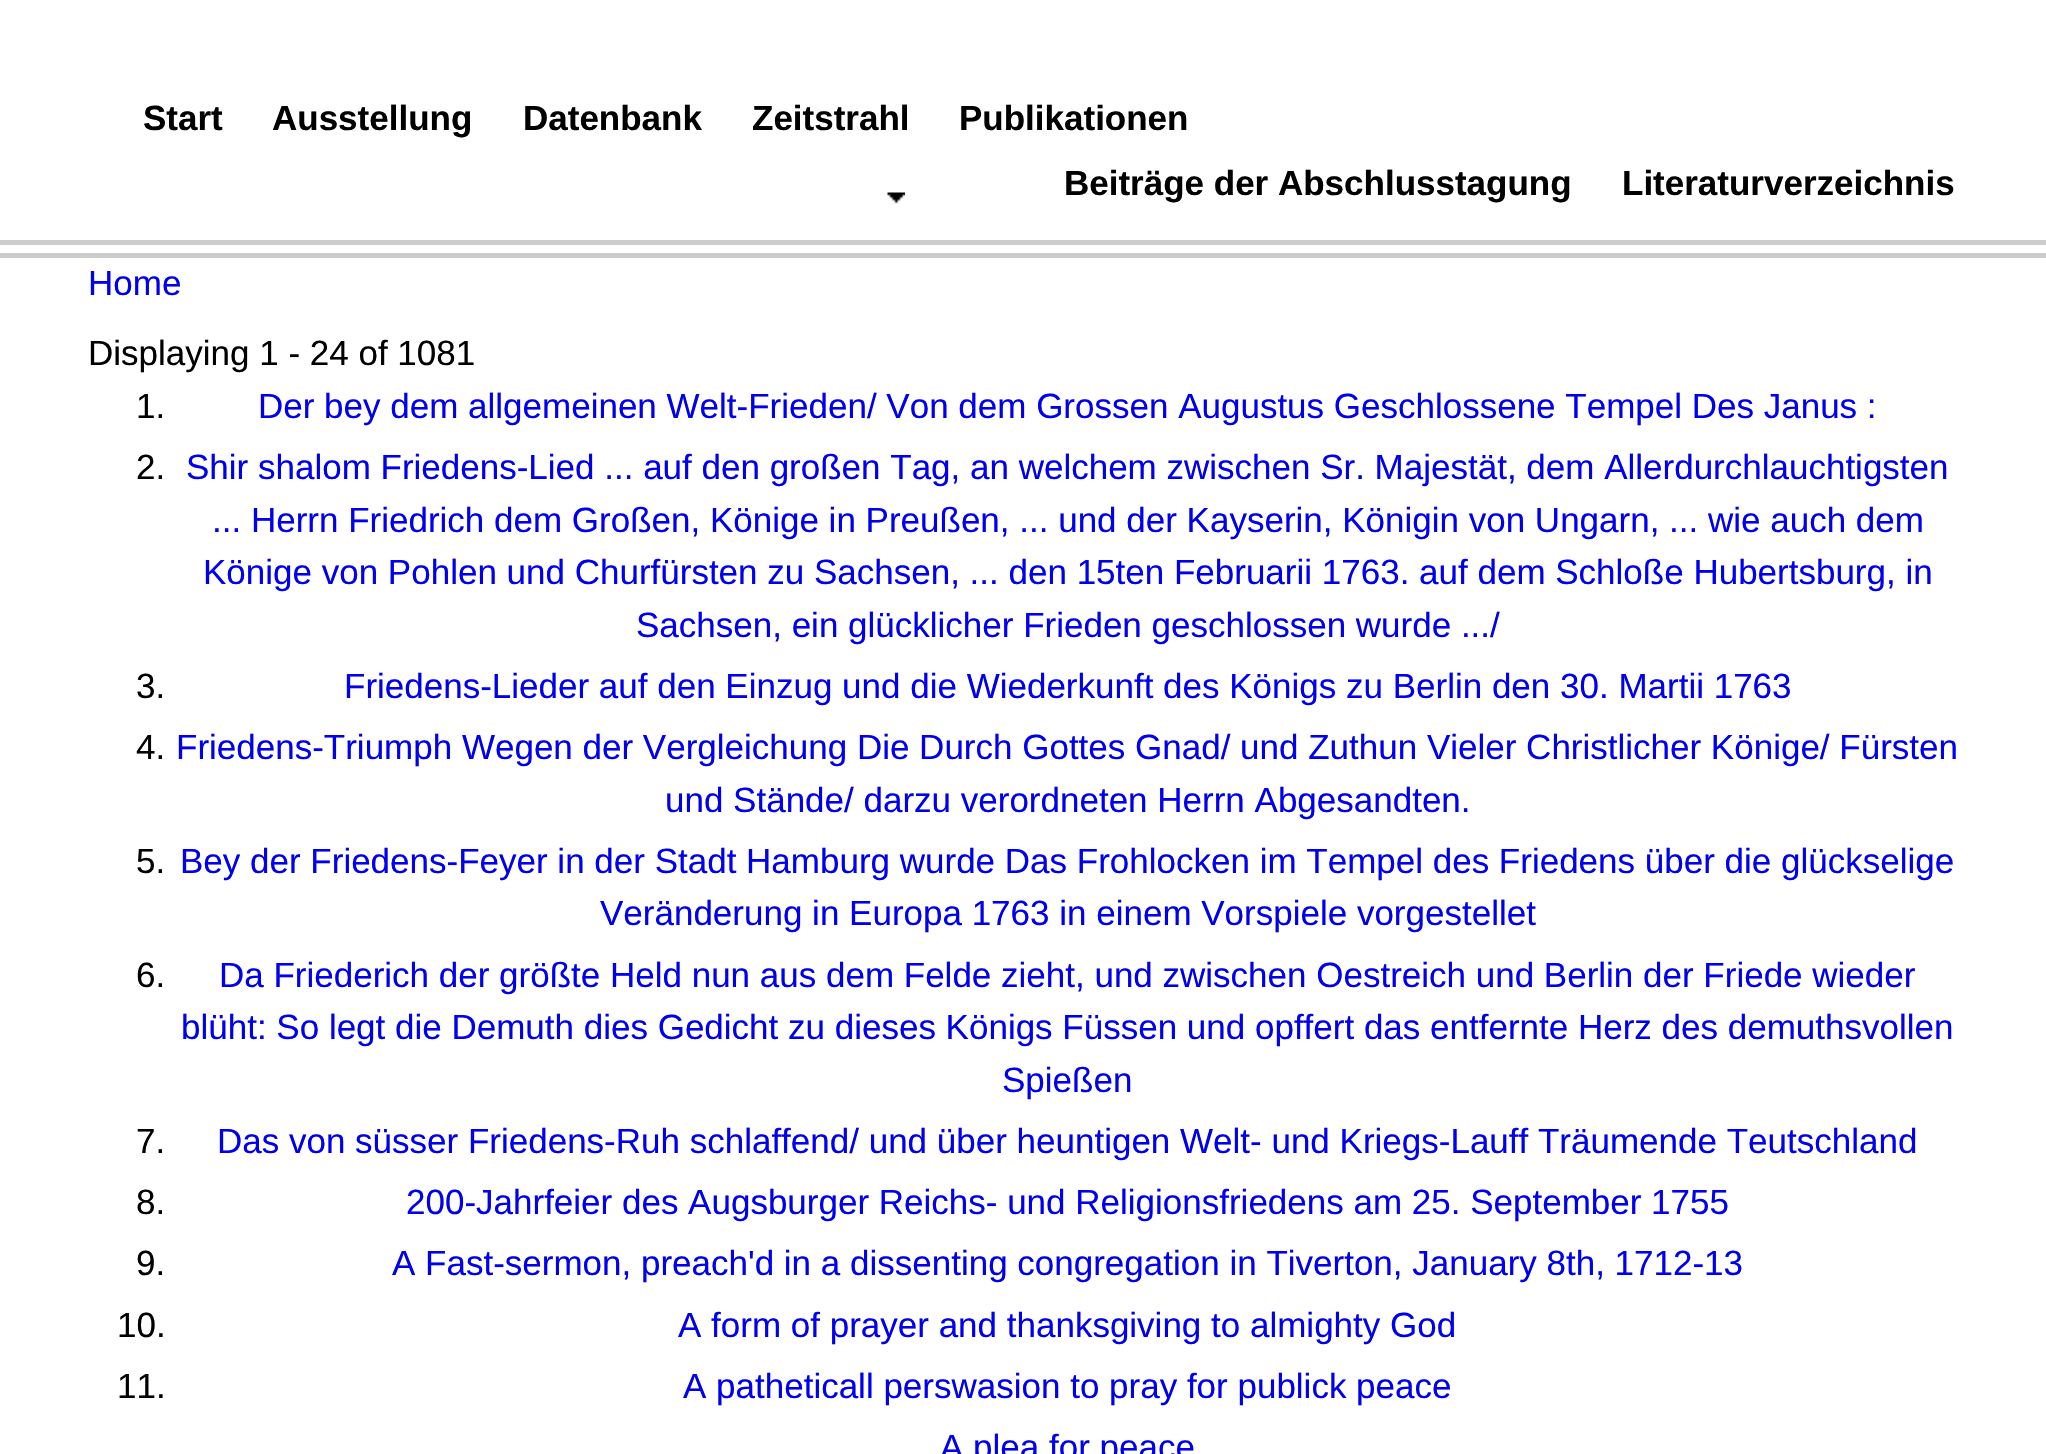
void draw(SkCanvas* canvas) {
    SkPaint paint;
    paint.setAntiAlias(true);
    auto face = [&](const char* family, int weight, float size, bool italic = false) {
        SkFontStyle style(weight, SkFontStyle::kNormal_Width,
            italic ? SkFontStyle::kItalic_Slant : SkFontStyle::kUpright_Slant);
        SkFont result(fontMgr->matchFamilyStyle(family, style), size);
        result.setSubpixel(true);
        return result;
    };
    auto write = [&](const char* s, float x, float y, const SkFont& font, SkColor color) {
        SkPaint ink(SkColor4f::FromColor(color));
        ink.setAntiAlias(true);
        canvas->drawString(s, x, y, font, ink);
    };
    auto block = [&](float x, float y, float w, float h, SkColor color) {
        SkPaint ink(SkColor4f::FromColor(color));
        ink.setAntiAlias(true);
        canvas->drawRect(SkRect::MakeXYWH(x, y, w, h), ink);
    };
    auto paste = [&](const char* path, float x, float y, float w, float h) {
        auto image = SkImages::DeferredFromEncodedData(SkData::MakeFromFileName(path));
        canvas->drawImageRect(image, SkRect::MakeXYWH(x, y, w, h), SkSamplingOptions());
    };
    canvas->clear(SK_ColorWHITE);
    auto kFont1 = face("Liberation Sans", 700, 35);
    write("Start", 143, 130, kFont1, SK_ColorBLACK);
    write("Ausstellung", 272, 130, kFont1, SK_ColorBLACK);
    write("Datenbank", 523, 130, kFont1, SK_ColorBLACK);
    write("Zeitstrahl", 752, 130, kFont1, SK_ColorBLACK);
    paste("pic1.png", 887, 192, 18, 12);
    write("Publikationen", 959, 130, kFont1, SK_ColorBLACK);
    write("Beiträge der Abschlusstagung", 1064, 195, kFont1, SK_ColorBLACK);
    write("Literaturverzeichnis", 1622, 195, kFont1, SK_ColorBLACK);
    block(0, 240, 2046, 5, SkColorSetRGB(204, 204, 204));
    block(0, 253, 2046, 5, SkColorSetRGB(204, 204, 204));
    auto kFont2 = face("Liberation Sans", 400, 35);
    write("Home", 88, 295, kFont2, SkColorSetRGB(0, 0, 238));
    write("Displaying 1 - 24 of 1081", 88, 365, kFont2, SK_ColorBLACK);
    write("1.", 136, 418, kFont2, SK_ColorBLACK);
    write("Der bey dem allgemeinen Welt-Frieden/ Von dem Grossen Augustus Geschlossene Tempel Des Janus :", 258, 418, kFont2, SkColorSetRGB(0, 0, 238));
    write("2.", 136, 479, kFont2, SK_ColorBLACK);
    write("Shir shalom Friedens-Lied ... auf den großen Tag, an welchem zwischen Sr. Majestät, dem Allerdurchlauchtigsten", 186, 479, kFont2, SkColorSetRGB(0, 0, 238));
    write("... Herrn Friedrich dem Großen, Könige in Preußen, ... und der Kayserin, Königin von Ungarn, ... wie auch dem", 212, 532, kFont2, SkColorSetRGB(0, 0, 238));
    write("Könige von Pohlen und Churfürsten zu Sachsen, ... den 15ten Februarii 1763. auf dem Schloße Hubertsburg, in", 203, 584, kFont2, SkColorSetRGB(0, 0, 238));
    write("Sachsen, ein glücklicher Frieden geschlossen wurde .../", 636, 637, kFont2, SkColorSetRGB(0, 0, 238));
    write("3.", 136, 698, kFont2, SK_ColorBLACK);
    write("Friedens-Lieder auf den Einzug und die Wiederkunft des Königs zu Berlin den 30. Martii 1763", 344, 698, kFont2, SkColorSetRGB(0, 0, 238));
    write("4.", 136, 759, kFont2, SK_ColorBLACK);
    write("Friedens-Triumph Wegen der Vergleichung Die Durch Gottes Gnad/ und Zuthun Vieler Christlicher Könige/ Fürsten", 176, 759, kFont2, SkColorSetRGB(0, 0, 238));
    write("und Stände/ darzu verordneten Herrn Abgesandten.", 665, 812, kFont2, SkColorSetRGB(0, 0, 238));
    write("5.", 136, 873, kFont2, SK_ColorBLACK);
    write("Bey der Friedens-Feyer in der Stadt Hamburg wurde Das Frohlocken im Tempel des Friedens über die glückselige", 180, 873, kFont2, SkColorSetRGB(0, 0, 238));
    write("Veränderung in Europa 1763 in einem Vorspiele vorgestellet", 600, 925, kFont2, SkColorSetRGB(0, 0, 238));
    write("6.", 136, 987, kFont2, SK_ColorBLACK);
    write("Da Friederich der größte Held nun aus dem Felde zieht, und zwischen Oestreich und Berlin der Friede wieder", 219, 987, kFont2, SkColorSetRGB(0, 0, 238));
    write("blüht: So legt die Demuth dies Gedicht zu dieses Königs Füssen und opffert das entfernte Herz des demuthsvollen", 181, 1039, kFont2, SkColorSetRGB(0, 0, 238));
    write("Spießen", 1002, 1092, kFont2, SkColorSetRGB(0, 0, 238));
    write("7.", 136, 1153, kFont2, SK_ColorBLACK);
    write("Das von süsser Friedens-Ruh schlaffend/ und über heuntigen Welt- und Kriegs-Lauff Träumende Teutschland", 217, 1153, kFont2, SkColorSetRGB(0, 0, 238));
    write("8.", 136, 1214, kFont2, SK_ColorBLACK);
    write("200-Jahrfeier des Augsburger Reichs- und Religionsfriedens am 25. September 1755", 406, 1214, kFont2, SkColorSetRGB(0, 0, 238));
    write("9.", 136, 1275, kFont2, SK_ColorBLACK);
    write("A Fast-sermon, preach'd in a dissenting congregation in Tiverton, January 8th, 1712-13", 392, 1275, kFont2, SkColorSetRGB(0, 0, 238));
    write("10.", 117, 1337, kFont2, SK_ColorBLACK);
    write("A form of prayer and thanksgiving to almighty God", 678, 1337, kFont2, SkColorSetRGB(0, 0, 238));
    write("11.", 117, 1398, kFont2, SK_ColorBLACK);
    write("A patheticall perswasion to pray for publick peace", 683, 1398, kFont2, SkColorSetRGB(0, 0, 238));
    write("A plea for peace", 940, 1459, kFont2, SkColorSetRGB(0, 0, 238));
}
